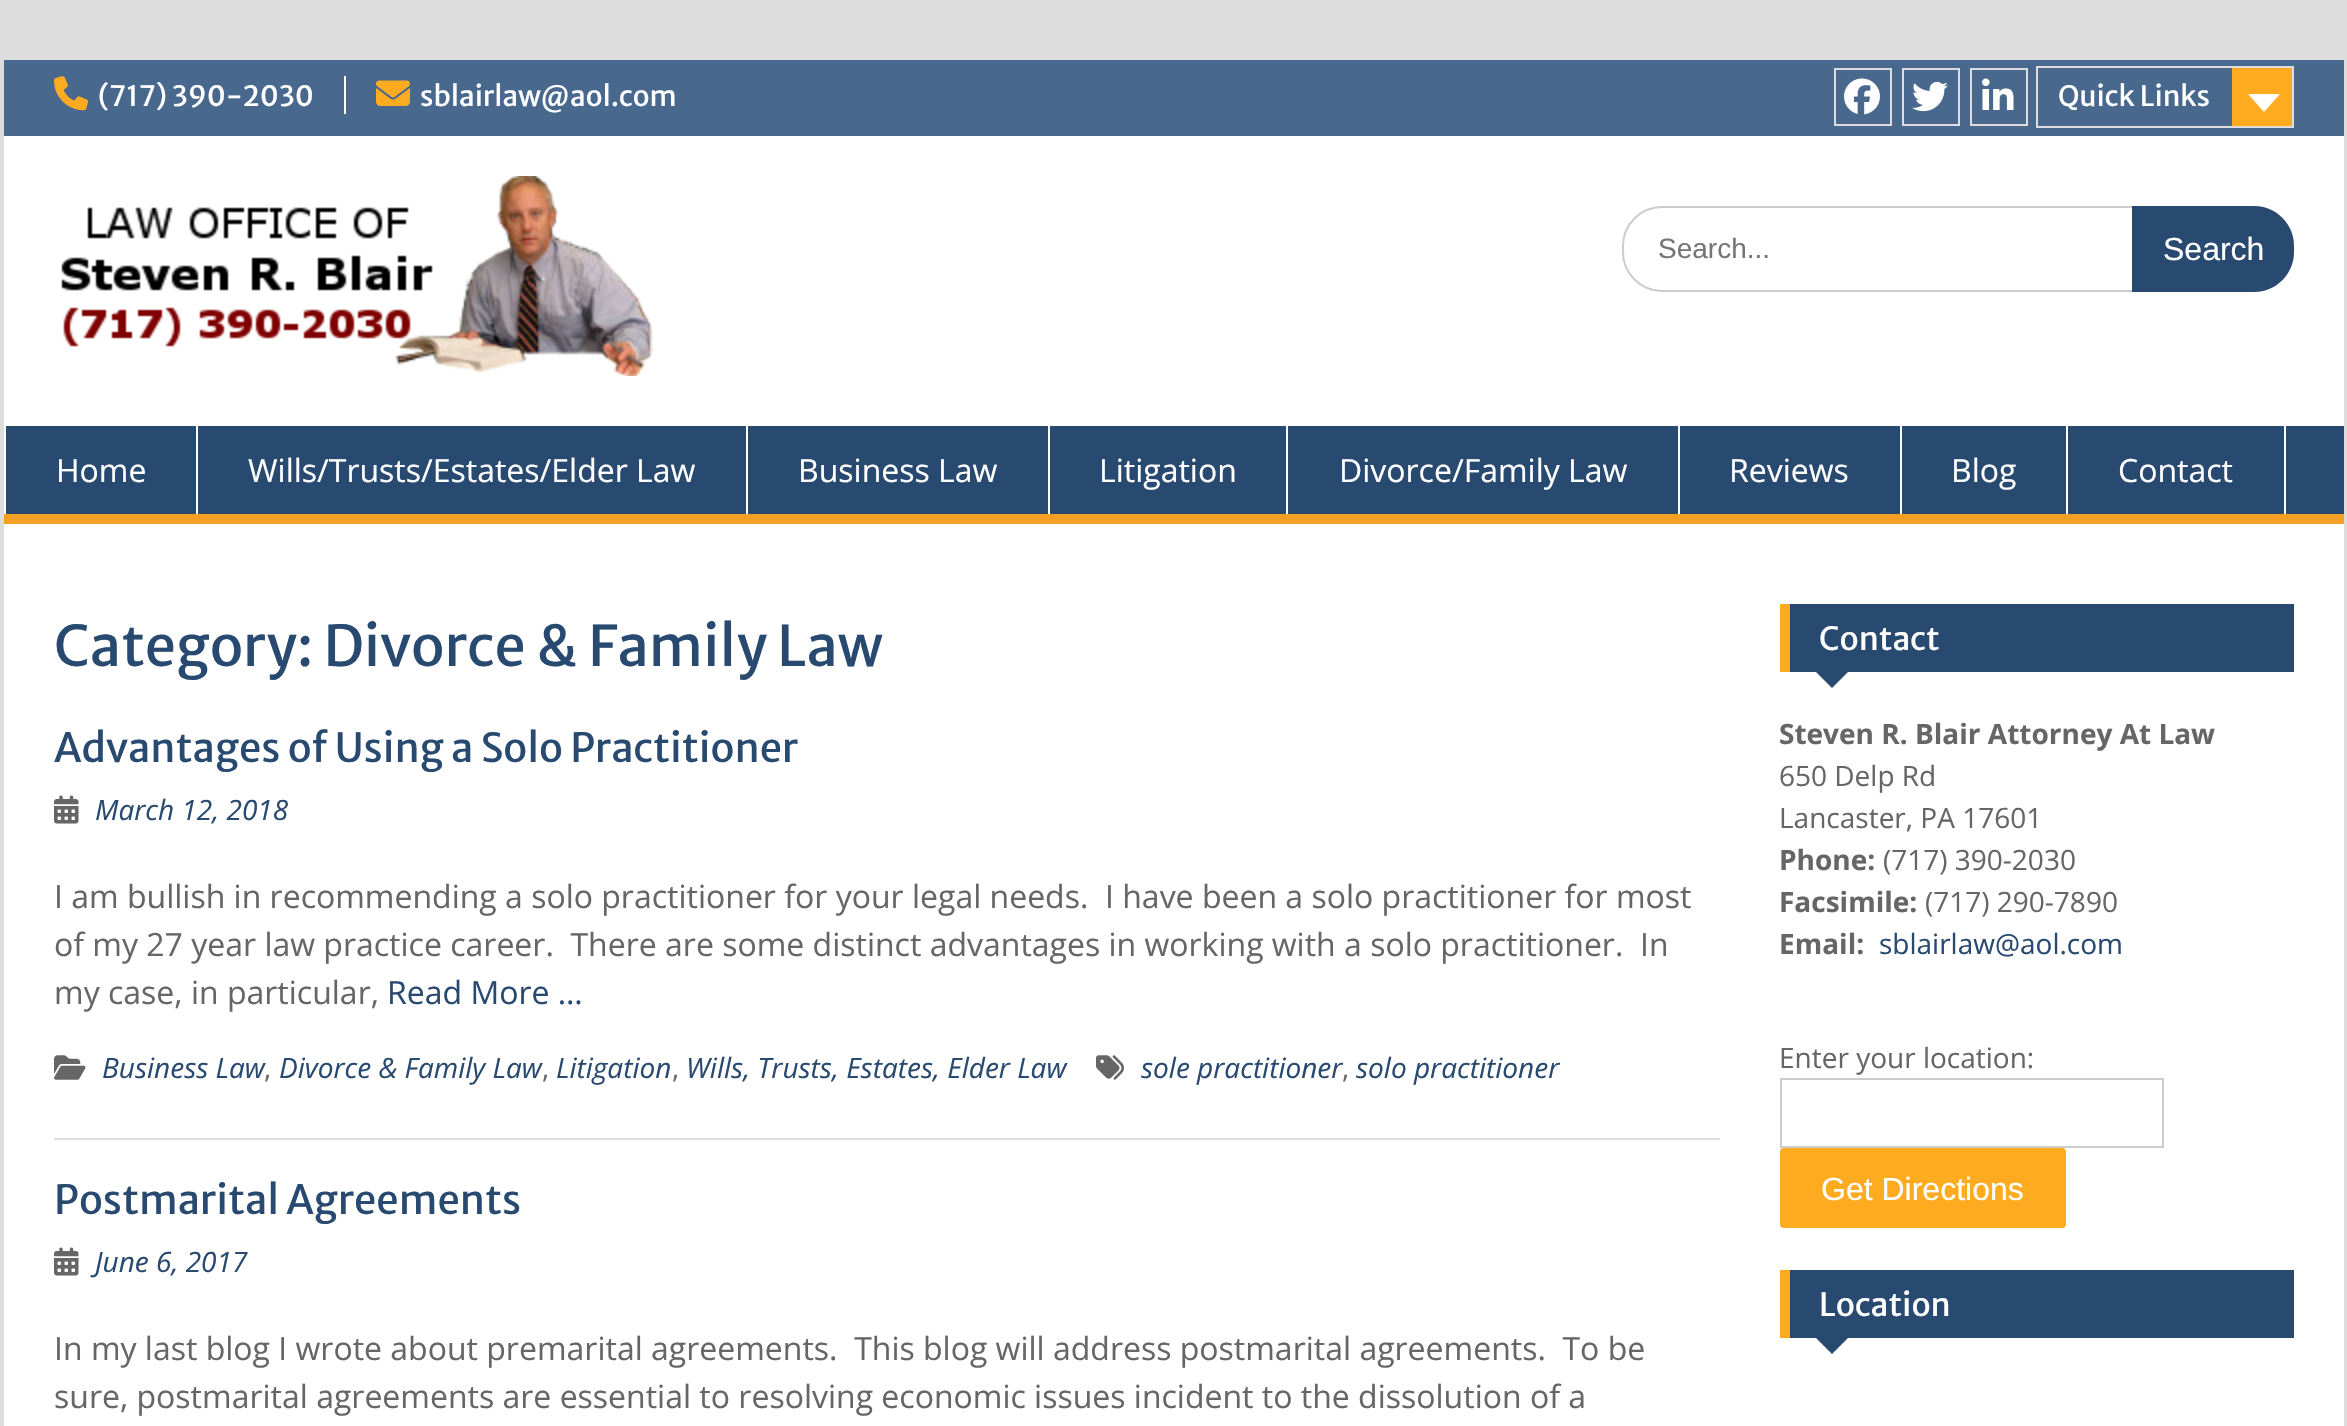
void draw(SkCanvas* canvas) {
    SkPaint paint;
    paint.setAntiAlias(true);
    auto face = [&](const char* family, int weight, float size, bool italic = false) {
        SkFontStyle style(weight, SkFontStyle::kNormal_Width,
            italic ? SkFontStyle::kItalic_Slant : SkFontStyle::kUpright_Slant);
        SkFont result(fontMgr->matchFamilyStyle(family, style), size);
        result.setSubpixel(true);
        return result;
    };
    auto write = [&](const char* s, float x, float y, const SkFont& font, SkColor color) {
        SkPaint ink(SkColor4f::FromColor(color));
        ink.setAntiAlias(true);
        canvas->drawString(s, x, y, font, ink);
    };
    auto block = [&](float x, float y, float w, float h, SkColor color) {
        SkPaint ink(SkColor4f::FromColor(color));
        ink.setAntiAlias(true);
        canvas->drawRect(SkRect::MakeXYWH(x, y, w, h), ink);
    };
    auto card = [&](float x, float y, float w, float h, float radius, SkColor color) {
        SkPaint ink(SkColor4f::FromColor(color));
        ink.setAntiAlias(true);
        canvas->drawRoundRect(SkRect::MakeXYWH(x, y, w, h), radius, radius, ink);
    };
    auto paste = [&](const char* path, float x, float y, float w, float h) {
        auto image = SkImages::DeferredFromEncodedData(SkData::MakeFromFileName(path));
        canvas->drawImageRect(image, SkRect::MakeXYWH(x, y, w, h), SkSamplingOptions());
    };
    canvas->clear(SkColorSetRGB(221, 221, 221));
    block(4, 136, 2340, 1290, SK_ColorWHITE);
    block(4, 60, 2340, 76, SkColorSetRGB(73, 104, 142));
    paste("pic1.png", 54, 76, 34, 35);
    auto kFont1 = face("Merriweather Sans", 400, 28);
    write("(717) 390-2030", 98, 106, kFont1, SK_ColorWHITE);
    block(344, 76, 2, 38, SK_ColorWHITE);
    paste("pic2.png", 376, 80, 34, 26);
    write("sblairlaw@aol.com", 420, 106, kFont1, SK_ColorWHITE);
    paint.setStyle(SkPaint::kStroke_Style);
    paint.setStrokeWidth(2);
    paint.setColor(SkColorSetRGB(221, 221, 221));
    canvas->drawRect(SkRect::MakeXYWH(1835, 69, 56, 56), paint);
    paste("pic3.png", 1844, 78, 36, 37);
    canvas->drawRect(SkRect::MakeXYWH(1903, 69, 56, 56), paint);
    paste("pic4.png", 1912, 81, 36, 31);
    canvas->drawRect(SkRect::MakeXYWH(1971, 69, 56, 56), paint);
    paste("pic5.png", 1982, 78, 32, 32);
    canvas->drawRect(SkRect::MakeXYWH(2037, 67, 256, 60), paint);
    write("Quick Links", 2058, 106, kFont1, SK_ColorWHITE);
    block(2232, 68, 60, 58, SkColorSetRGB(255, 171, 31));
    paint.setStyle(SkPaint::kFill_Style);
    paint.setColor(SK_ColorWHITE);
    canvas->drawPath(SkPathBuilder().moveTo(2248, 94).lineTo(2280, 94).lineTo(2264, 112).close().detach(), paint);
    paste("pic6.png", 61, 176, 592, 200);
    paint.setStyle(SkPaint::kStroke_Style);
    paint.setColor(SkColorSetRGB(204, 204, 204));
    canvas->drawRoundRect(SkRect::MakeXYWH(1623, 207, 670, 84), 39, 39, paint);
    auto kFont2 = face("Liberation Sans", 400, 28);
    write("Search...", 1658, 258, kFont2, SkColorSetRGB(117, 117, 117));
    paint.setStyle(SkPaint::kFill_Style);
    paint.setColor(SkColorSetRGB(41, 74, 112));
    canvas->drawPath(SkPathBuilder().moveTo(2132, 206).lineTo(2254, 206).cubicTo(2276, 206, 2294, 224, 2294, 246).lineTo(2294, 252).cubicTo(2294, 274, 2276, 292, 2254, 292).lineTo(2132, 292).close().detach(), paint);
    auto kFont3 = face("Liberation Sans", 400, 32);
    write("Search", 2163, 260, kFont3, SK_ColorWHITE);
    block(6, 426, 2338, 88, SkColorSetRGB(41, 74, 112));
    block(4, 514, 2340, 10, SkColorSetRGB(244, 160, 36));
    block(196, 426, 2, 88, SK_ColorWHITE);
    auto kFont4 = face("Open Sans", 400, 32);
    write("Home", 56, 482, kFont4, SK_ColorWHITE);
    block(746, 426, 2, 88, SK_ColorWHITE);
    write("Wills/Trusts/Estates/Elder Law", 248, 482, kFont4, SK_ColorWHITE);
    block(1048, 426, 2, 88, SK_ColorWHITE);
    write("Business Law", 798, 482, kFont4, SK_ColorWHITE);
    block(1286, 426, 2, 88, SK_ColorWHITE);
    write("Litigation", 1099, 482, kFont4, SK_ColorWHITE);
    block(1678, 426, 2, 88, SK_ColorWHITE);
    write("Divorce/Family Law", 1339, 482, kFont4, SK_ColorWHITE);
    block(1900, 426, 2, 88, SK_ColorWHITE);
    write("Reviews", 1729, 482, kFont4, SK_ColorWHITE);
    block(2066, 426, 2, 88, SK_ColorWHITE);
    write("Blog", 1951, 482, kFont4, SK_ColorWHITE);
    block(2284, 426, 2, 88, SK_ColorWHITE);
    write("Contact", 2118, 482, kFont4, SK_ColorWHITE);
    auto kFont5 = face("Merriweather Sans", 400, 56);
    write("Category: Divorce & Family Law", 54, 666, kFont5, SkColorSetRGB(41, 74, 112));
    block(54, 1138, 1666, 2, SkColorSetRGB(221, 221, 221));
    auto kFont6 = face("Merriweather Sans", 400, 40);
    write("Advantages of Using a Solo Practitioner", 54, 762, kFont6, SkColorSetRGB(41, 74, 112));
    paste("pic7.png", 54, 795, 25, 29);
    auto kFont7 = face("Open Sans", 400, 28, true);
    write("March 12, 2018", 95, 820, kFont7, SkColorSetRGB(41, 74, 112));
    write("I am bullish in recommending a solo practitioner for your legal needs.  I have been a solo practitioner for most", 54, 908, kFont4, SkColorSetRGB(102, 102, 102));
    write("of my 27 year law practice career.  There are some distinct advantages in working with a solo practitioner.  In", 54, 956, kFont4, SkColorSetRGB(102, 102, 102));
    write("my case, in particular,", 54, 1004, kFont4, SkColorSetRGB(102, 102, 102));
    write("Read More …", 387, 1004, kFont4, SkColorSetRGB(41, 74, 112));
    paste("pic8.png", 54, 1055, 32, 25);
    write("Business Law", 102, 1078, kFont7, SkColorSetRGB(41, 74, 112));
    auto kFont8 = face("Open Sans", 400, 28);
    write(",", 264, 1078, kFont8, SkColorSetRGB(102, 102, 102));
    write("Divorce & Family Law", 279, 1078, kFont7, SkColorSetRGB(41, 74, 112));
    write(",", 542, 1078, kFont8, SkColorSetRGB(102, 102, 102));
    write("Litigation", 556, 1078, kFont7, SkColorSetRGB(41, 74, 112));
    write(",", 672, 1078, kFont8, SkColorSetRGB(102, 102, 102));
    write("Wills, Trusts, Estates, Elder Law", 686, 1078, kFont7, SkColorSetRGB(41, 74, 112));
    paste("pic9.png", 1096, 1055, 28, 25);
    write("sole practitioner", 1141, 1078, kFont7, SkColorSetRGB(41, 74, 112));
    write(",", 1342, 1078, kFont8, SkColorSetRGB(102, 102, 102));
    write("solo practitioner", 1356, 1078, kFont7, SkColorSetRGB(41, 74, 112));
    write("Postmarital Agreements", 54, 1214, kFont6, SkColorSetRGB(41, 74, 112));
    paste("pic7.png", 54, 1247, 25, 29);
    write("June 6, 2017", 95, 1272, kFont7, SkColorSetRGB(41, 74, 112));
    write("In my last blog I wrote about premarital agreements.  This blog will address postmarital agreements.  To be", 54, 1360, kFont4, SkColorSetRGB(102, 102, 102));
    write("sure, postmarital agreements are essential to resolving economic issues incident to the dissolution of a", 54, 1408, kFont4, SkColorSetRGB(102, 102, 102));
    block(1790, 604, 504, 68, SkColorSetRGB(41, 74, 112));
    block(1780, 604, 10, 68, SkColorSetRGB(255, 171, 31));
    auto kFont9 = face("Merriweather Sans", 400, 32);
    write("Contact", 1819, 650, kFont9, SK_ColorWHITE);
    canvas->drawPath(SkPathBuilder().moveTo(1814, 670).lineTo(1850, 670).lineTo(1832, 688).close().detach(), paint);
    auto kFont10 = face("Open Sans", 700, 28);
    write("Steven R. Blair Attorney At Law", 1779, 744, kFont10, SkColorSetRGB(102, 102, 102));
    write("650 Delp Rd", 1779, 786, kFont8, SkColorSetRGB(102, 102, 102));
    write("Lancaster, PA 17601", 1779, 828, kFont8, SkColorSetRGB(102, 102, 102));
    write("Phone:", 1779, 870, kFont10, SkColorSetRGB(102, 102, 102));
    write("(717) 390-2030", 1883, 870, kFont8, SkColorSetRGB(102, 102, 102));
    write("Facsimile:", 1779, 912, kFont10, SkColorSetRGB(102, 102, 102));
    write("(717) 290-7890", 1925, 912, kFont8, SkColorSetRGB(102, 102, 102));
    write("Email:", 1779, 954, kFont10, SkColorSetRGB(102, 102, 102));
    write("sblairlaw@aol.com", 1879, 954, kFont8, SkColorSetRGB(41, 74, 112));
    write("Enter your location:", 1779, 1068, kFont8, SkColorSetRGB(102, 102, 102));
    paint.setStyle(SkPaint::kStroke_Style);
    paint.setColor(SkColorSetRGB(204, 204, 204));
    canvas->drawRect(SkRect::MakeXYWH(1781, 1079, 382, 68), paint);
    card(1780, 1148, 286, 80, 4, SkColorSetRGB(255, 171, 31));
    write("Get Directions", 1821, 1200, kFont3, SK_ColorWHITE);
    block(1790, 1270, 504, 68, SkColorSetRGB(41, 74, 112));
    block(1780, 1270, 10, 68, SkColorSetRGB(255, 171, 31));
    write("Location", 1819, 1316, kFont9, SK_ColorWHITE);
    paint.setStyle(SkPaint::kFill_Style);
    paint.setColor(SkColorSetRGB(41, 74, 112));
    canvas->drawPath(SkPathBuilder().moveTo(1814, 1336).lineTo(1850, 1336).lineTo(1832, 1354).close().detach(), paint);
}
